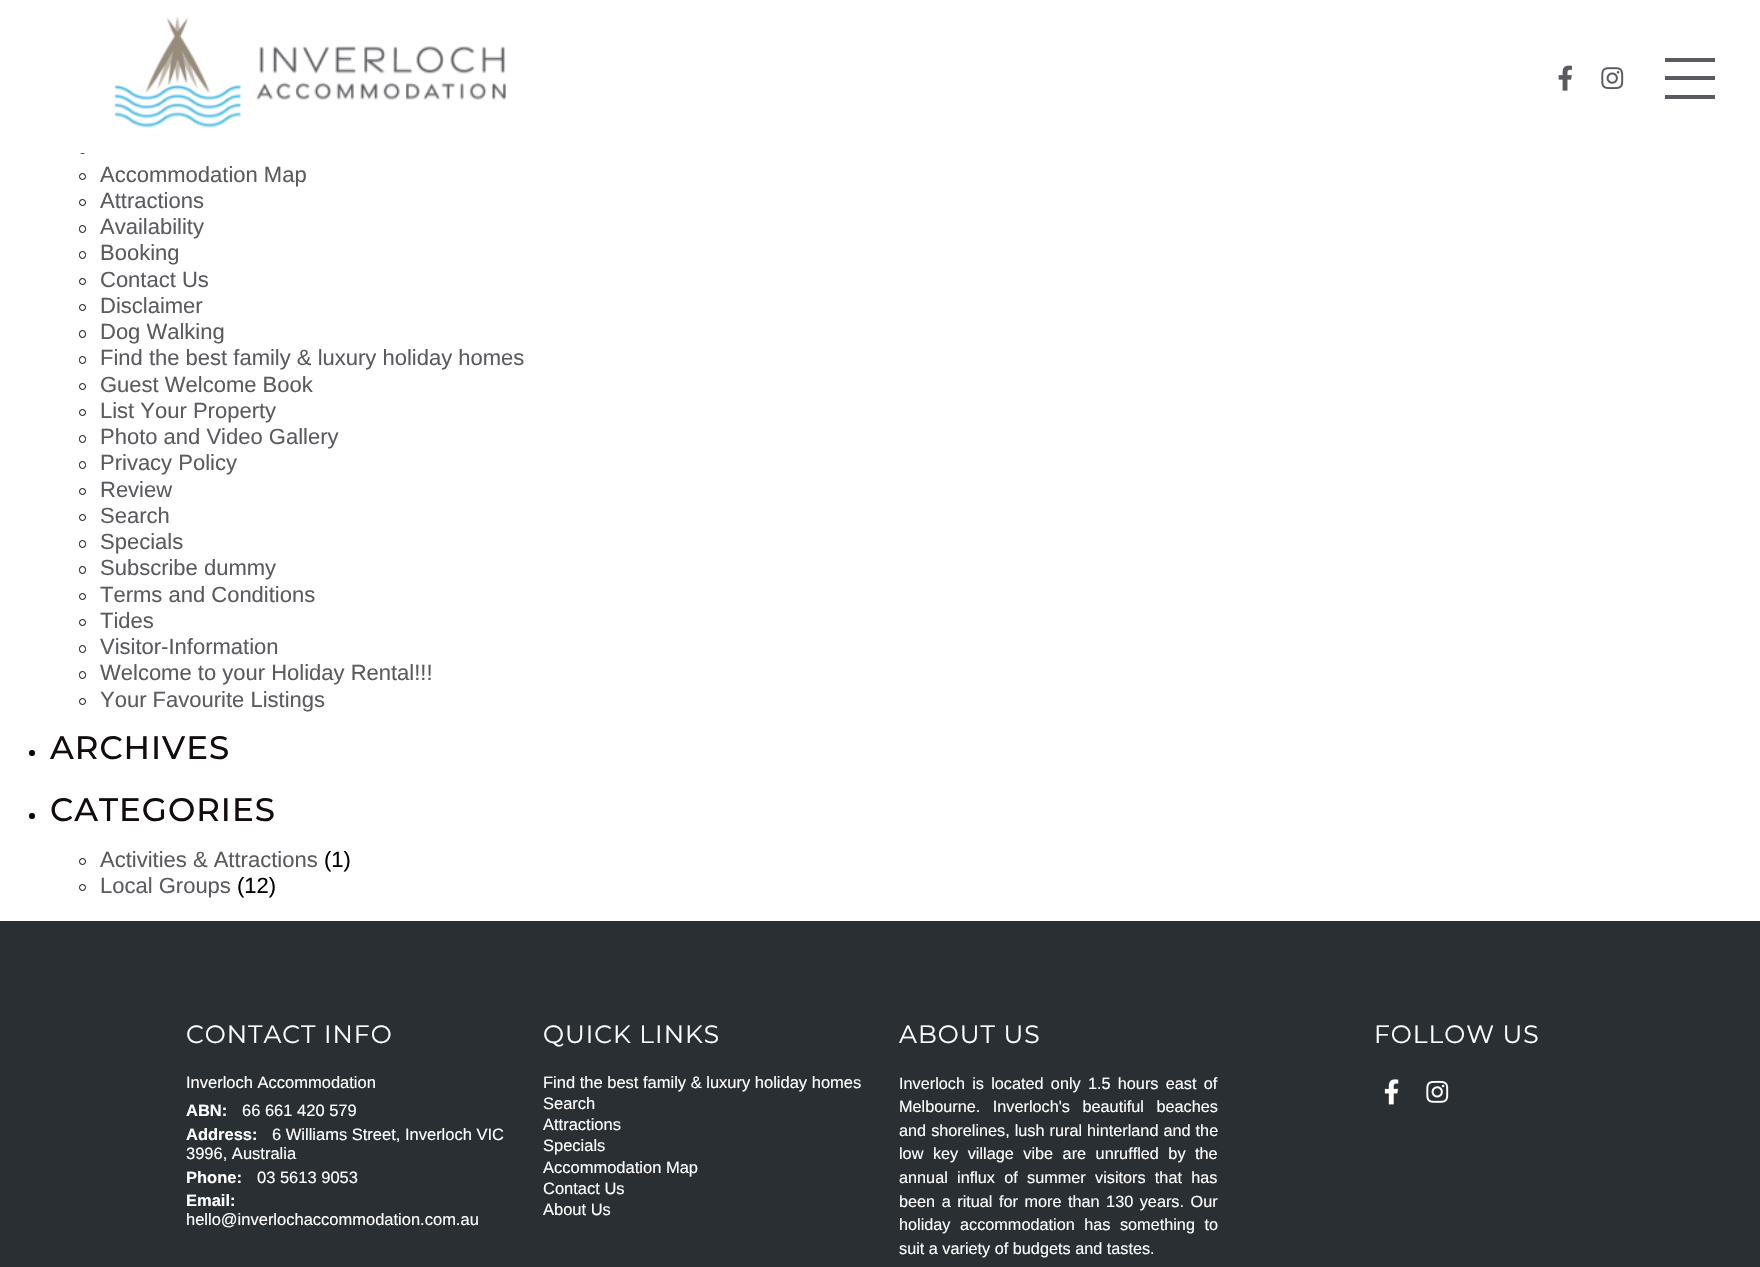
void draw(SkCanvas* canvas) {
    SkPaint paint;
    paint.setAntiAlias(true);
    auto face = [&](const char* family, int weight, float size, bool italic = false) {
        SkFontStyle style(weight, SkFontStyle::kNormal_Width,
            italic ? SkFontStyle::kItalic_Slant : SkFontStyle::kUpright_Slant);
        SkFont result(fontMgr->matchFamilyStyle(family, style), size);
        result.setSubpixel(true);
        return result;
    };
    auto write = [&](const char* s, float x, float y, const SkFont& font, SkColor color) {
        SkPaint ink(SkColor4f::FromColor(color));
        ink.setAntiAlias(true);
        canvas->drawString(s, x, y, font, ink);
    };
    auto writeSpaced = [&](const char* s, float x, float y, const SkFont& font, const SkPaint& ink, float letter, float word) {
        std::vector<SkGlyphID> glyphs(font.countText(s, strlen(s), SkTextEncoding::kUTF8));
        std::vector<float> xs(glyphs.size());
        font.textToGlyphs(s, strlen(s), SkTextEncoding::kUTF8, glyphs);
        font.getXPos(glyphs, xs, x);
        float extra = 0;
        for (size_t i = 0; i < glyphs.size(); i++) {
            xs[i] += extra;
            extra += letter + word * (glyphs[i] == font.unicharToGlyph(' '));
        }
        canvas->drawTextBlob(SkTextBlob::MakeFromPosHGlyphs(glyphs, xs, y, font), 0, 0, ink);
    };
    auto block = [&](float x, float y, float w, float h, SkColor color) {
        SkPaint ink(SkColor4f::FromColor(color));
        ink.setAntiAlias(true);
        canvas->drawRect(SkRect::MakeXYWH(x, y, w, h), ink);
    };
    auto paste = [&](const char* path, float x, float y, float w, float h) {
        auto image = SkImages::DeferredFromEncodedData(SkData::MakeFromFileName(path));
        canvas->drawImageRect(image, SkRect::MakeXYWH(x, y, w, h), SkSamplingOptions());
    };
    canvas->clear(SK_ColorWHITE);
    paint.setStyle(SkPaint::kStroke_Style);
    paint.setStrokeWidth(1);
    paint.setColor(SK_ColorBLACK);
    canvas->drawRoundRect(SkRect::MakeXYWH(79.5f, 146.5f, 6, 7), 3, 3, paint);
    block(79, 146, 7, 7, SK_ColorWHITE);
    paste("pic1.png", 114, 16, 392, 112);
    paste("pic2.png", 1558, 65, 14, 26);
    paste("pic3.png", 1601, 67, 23, 23);
    block(1665, 58, 50, 4, SkColorSetRGB(90, 91, 95));
    block(1665, 76, 50, 4, SkColorSetRGB(90, 91, 95));
    block(1665, 95, 50, 4, SkColorSetRGB(90, 91, 95));
    canvas->drawCircle(82.5f, 176.5f, 3, paint);
    auto kFont1 = face("Liberation Sans", 400, 22);
    write("Accommodation Map", 100, 182, kFont1, SkColorSetRGB(90, 91, 95));
    canvas->drawCircle(82.5f, 202.5f, 3, paint);
    write("Attractions", 100, 208, kFont1, SkColorSetRGB(90, 91, 95));
    canvas->drawRoundRect(SkRect::MakeXYWH(79.5f, 225.5f, 6, 7), 3, 3, paint);
    write("Availability", 100, 234, kFont1, SkColorSetRGB(90, 91, 95));
    canvas->drawRoundRect(SkRect::MakeXYWH(79.5f, 251.5f, 6, 7), 3, 3, paint);
    write("Booking", 100, 260, kFont1, SkColorSetRGB(90, 91, 95));
    canvas->drawCircle(82.5f, 281.5f, 3, paint);
    write("Contact Us", 100, 287, kFont1, SkColorSetRGB(90, 91, 95));
    canvas->drawCircle(82.5f, 307.5f, 3, paint);
    write("Disclaimer", 100, 313, kFont1, SkColorSetRGB(90, 91, 95));
    canvas->drawRoundRect(SkRect::MakeXYWH(79.5f, 330.5f, 6, 7), 3, 3, paint);
    write("Dog Walking", 100, 339, kFont1, SkColorSetRGB(90, 91, 95));
    canvas->drawRoundRect(SkRect::MakeXYWH(79.5f, 356.5f, 6, 7), 3, 3, paint);
    write("Find the best family & luxury holiday homes", 100, 365, kFont1, SkColorSetRGB(90, 91, 95));
    canvas->drawCircle(82.5f, 386.5f, 3, paint);
    write("Guest Welcome Book", 100, 392, kFont1, SkColorSetRGB(90, 91, 95));
    canvas->drawCircle(82.5f, 412.5f, 3, paint);
    write("List Your Property", 100, 418, kFont1, SkColorSetRGB(90, 91, 95));
    canvas->drawRoundRect(SkRect::MakeXYWH(79.5f, 435.5f, 6, 7), 3, 3, paint);
    write("Photo and Video Gallery", 100, 444, kFont1, SkColorSetRGB(90, 91, 95));
    canvas->drawRoundRect(SkRect::MakeXYWH(79.5f, 461.5f, 6, 7), 3, 3, paint);
    write("Privacy Policy", 100, 470, kFont1, SkColorSetRGB(90, 91, 95));
    canvas->drawCircle(82.5f, 491.5f, 3, paint);
    write("Review", 100, 497, kFont1, SkColorSetRGB(90, 91, 95));
    canvas->drawCircle(82.5f, 517.5f, 3, paint);
    write("Search", 100, 523, kFont1, SkColorSetRGB(90, 91, 95));
    canvas->drawRoundRect(SkRect::MakeXYWH(79.5f, 540.5f, 6, 7), 3, 3, paint);
    write("Specials", 100, 549, kFont1, SkColorSetRGB(90, 91, 95));
    canvas->drawRoundRect(SkRect::MakeXYWH(79.5f, 566.5f, 6, 7), 3, 3, paint);
    write("Subscribe dummy", 100, 575, kFont1, SkColorSetRGB(90, 91, 95));
    canvas->drawCircle(82.5f, 596.5f, 3, paint);
    write("Terms and Conditions", 100, 602, kFont1, SkColorSetRGB(90, 91, 95));
    canvas->drawCircle(82.5f, 622.5f, 3, paint);
    write("Tides", 100, 628, kFont1, SkColorSetRGB(90, 91, 95));
    canvas->drawRoundRect(SkRect::MakeXYWH(79.5f, 645.5f, 6, 7), 3, 3, paint);
    write("Visitor-Information", 100, 654, kFont1, SkColorSetRGB(90, 91, 95));
    canvas->drawRoundRect(SkRect::MakeXYWH(79.5f, 671.5f, 6, 7), 3, 3, paint);
    write("Welcome to your Holiday Rental!!!", 100, 680, kFont1, SkColorSetRGB(90, 91, 95));
    canvas->drawCircle(82.5f, 701.5f, 3, paint);
    write("Your Favourite Listings", 100, 707, kFont1, SkColorSetRGB(90, 91, 95));
    paint.setStyle(SkPaint::kFill_Style);
    canvas->drawCircle(32, 753, 3, paint);
    auto kFont2 = face("Montserrat", 500, 32.5f);
    paint.setColor(SkColorSetRGB(19, 12, 13));
    writeSpaced("ARCHIVES", 50, 759, kFont2, paint, 1, 0);
    paint.setColor(SK_ColorBLACK);
    canvas->drawCircle(32, 816, 3, paint);
    paint.setColor(SkColorSetRGB(19, 12, 13));
    writeSpaced("CATEGORIES", 50, 821, kFont2, paint, 1, 0);
    paint.setStyle(SkPaint::kStroke_Style);
    paint.setColor(SK_ColorBLACK);
    canvas->drawCircle(82.5f, 861.5f, 3, paint);
    write("Activities & Attractions", 100, 867, kFont1, SkColorSetRGB(90, 91, 95));
    write("(1)", 324, 867, kFont1, SK_ColorBLACK);
    canvas->drawCircle(82.5f, 887.5f, 3, paint);
    write("Local Groups", 100, 893, kFont1, SkColorSetRGB(90, 91, 95));
    write("(12)", 237, 893, kFont1, SK_ColorBLACK);
    block(0, 921, 1760, 346, SkColorSetRGB(41, 47, 50));
    auto kFont3 = face("Montserrat", 400, 25);
    paint.setStyle(SkPaint::kFill_Style);
    paint.setColor(SK_ColorWHITE);
    writeSpaced("CONTACT INFO", 186, 1043, kFont3, paint, 1, 0);
    auto kFont4 = face("Liberation Sans", 400, 16.5f);
    write("Inverloch Accommodation", 186, 1088, kFont4, SK_ColorWHITE);
    auto kFont5 = face("Liberation Sans", 700, 16.5f);
    write("ABN:", 186, 1116, kFont5, SK_ColorWHITE);
    write("66 661 420 579", 242, 1116, kFont4, SK_ColorWHITE);
    write("Address:", 186, 1140, kFont5, SK_ColorWHITE);
    write("6 Williams Street, Inverloch VIC", 272, 1140, kFont4, SK_ColorWHITE);
    write("3996, Australia", 186, 1159, kFont4, SK_ColorWHITE);
    write("Phone:", 186, 1183, kFont5, SK_ColorWHITE);
    write("03 5613 9053", 257, 1183, kFont4, SK_ColorWHITE);
    write("Email:", 186, 1206, kFont5, SK_ColorWHITE);
    write("hello@inverlochaccommodation.com.au", 186, 1225, kFont4, SK_ColorWHITE);
    writeSpaced("QUICK LINKS", 543, 1043, kFont3, paint, 1, 0);
    write("Find the best family & luxury holiday homes", 543, 1088, kFont4, SK_ColorWHITE);
    write("Search", 543, 1109, kFont4, SK_ColorWHITE);
    write("Attractions", 543, 1130, kFont4, SK_ColorWHITE);
    write("Specials", 543, 1151, kFont4, SK_ColorWHITE);
    write("Accommodation Map", 543, 1173, kFont4, SK_ColorWHITE);
    write("Contact Us", 543, 1194, kFont4, SK_ColorWHITE);
    write("About Us", 543, 1215, kFont4, SK_ColorWHITE);
    writeSpaced("ABOUT US", 899, 1043, kFont3, paint, 1, 0);
    auto kFont6 = face("Liberation Sans", 400, 16.25f);
    writeSpaced("Inverloch is located only 1.5 hours east of", 899, 1089, kFont6, paint, 0, 2.75f);
    writeSpaced("Melbourne. Inverloch's beautiful beaches", 899, 1112, kFont6, paint, 0, 8);
    writeSpaced("and shorelines, lush rural hinterland and the", 899, 1136, kFont6, paint, 0, 0.5f);
    writeSpaced("low key village vibe are unruffled by the", 899, 1159, kFont6, paint, 0, 5);
    writeSpaced("annual influx of summer visitors that has", 899, 1183, kFont6, paint, 0, 4.75f);
    writeSpaced("been a ritual for more than 130 years. Our", 899, 1207, kFont6, paint, 0, 2);
    writeSpaced("holiday accommodation has something to", 899, 1230, kFont6, paint, 0, 5);
    write("suit a variety of budgets and tastes.", 899, 1254, kFont6, SK_ColorWHITE);
    writeSpaced("FOLLOW US", 1374, 1043, kFont3, paint, 1, 0);
    paste("pic4.png", 1384, 1079, 15, 26);
    paste("pic5.png", 1426, 1080, 23, 23);
}
